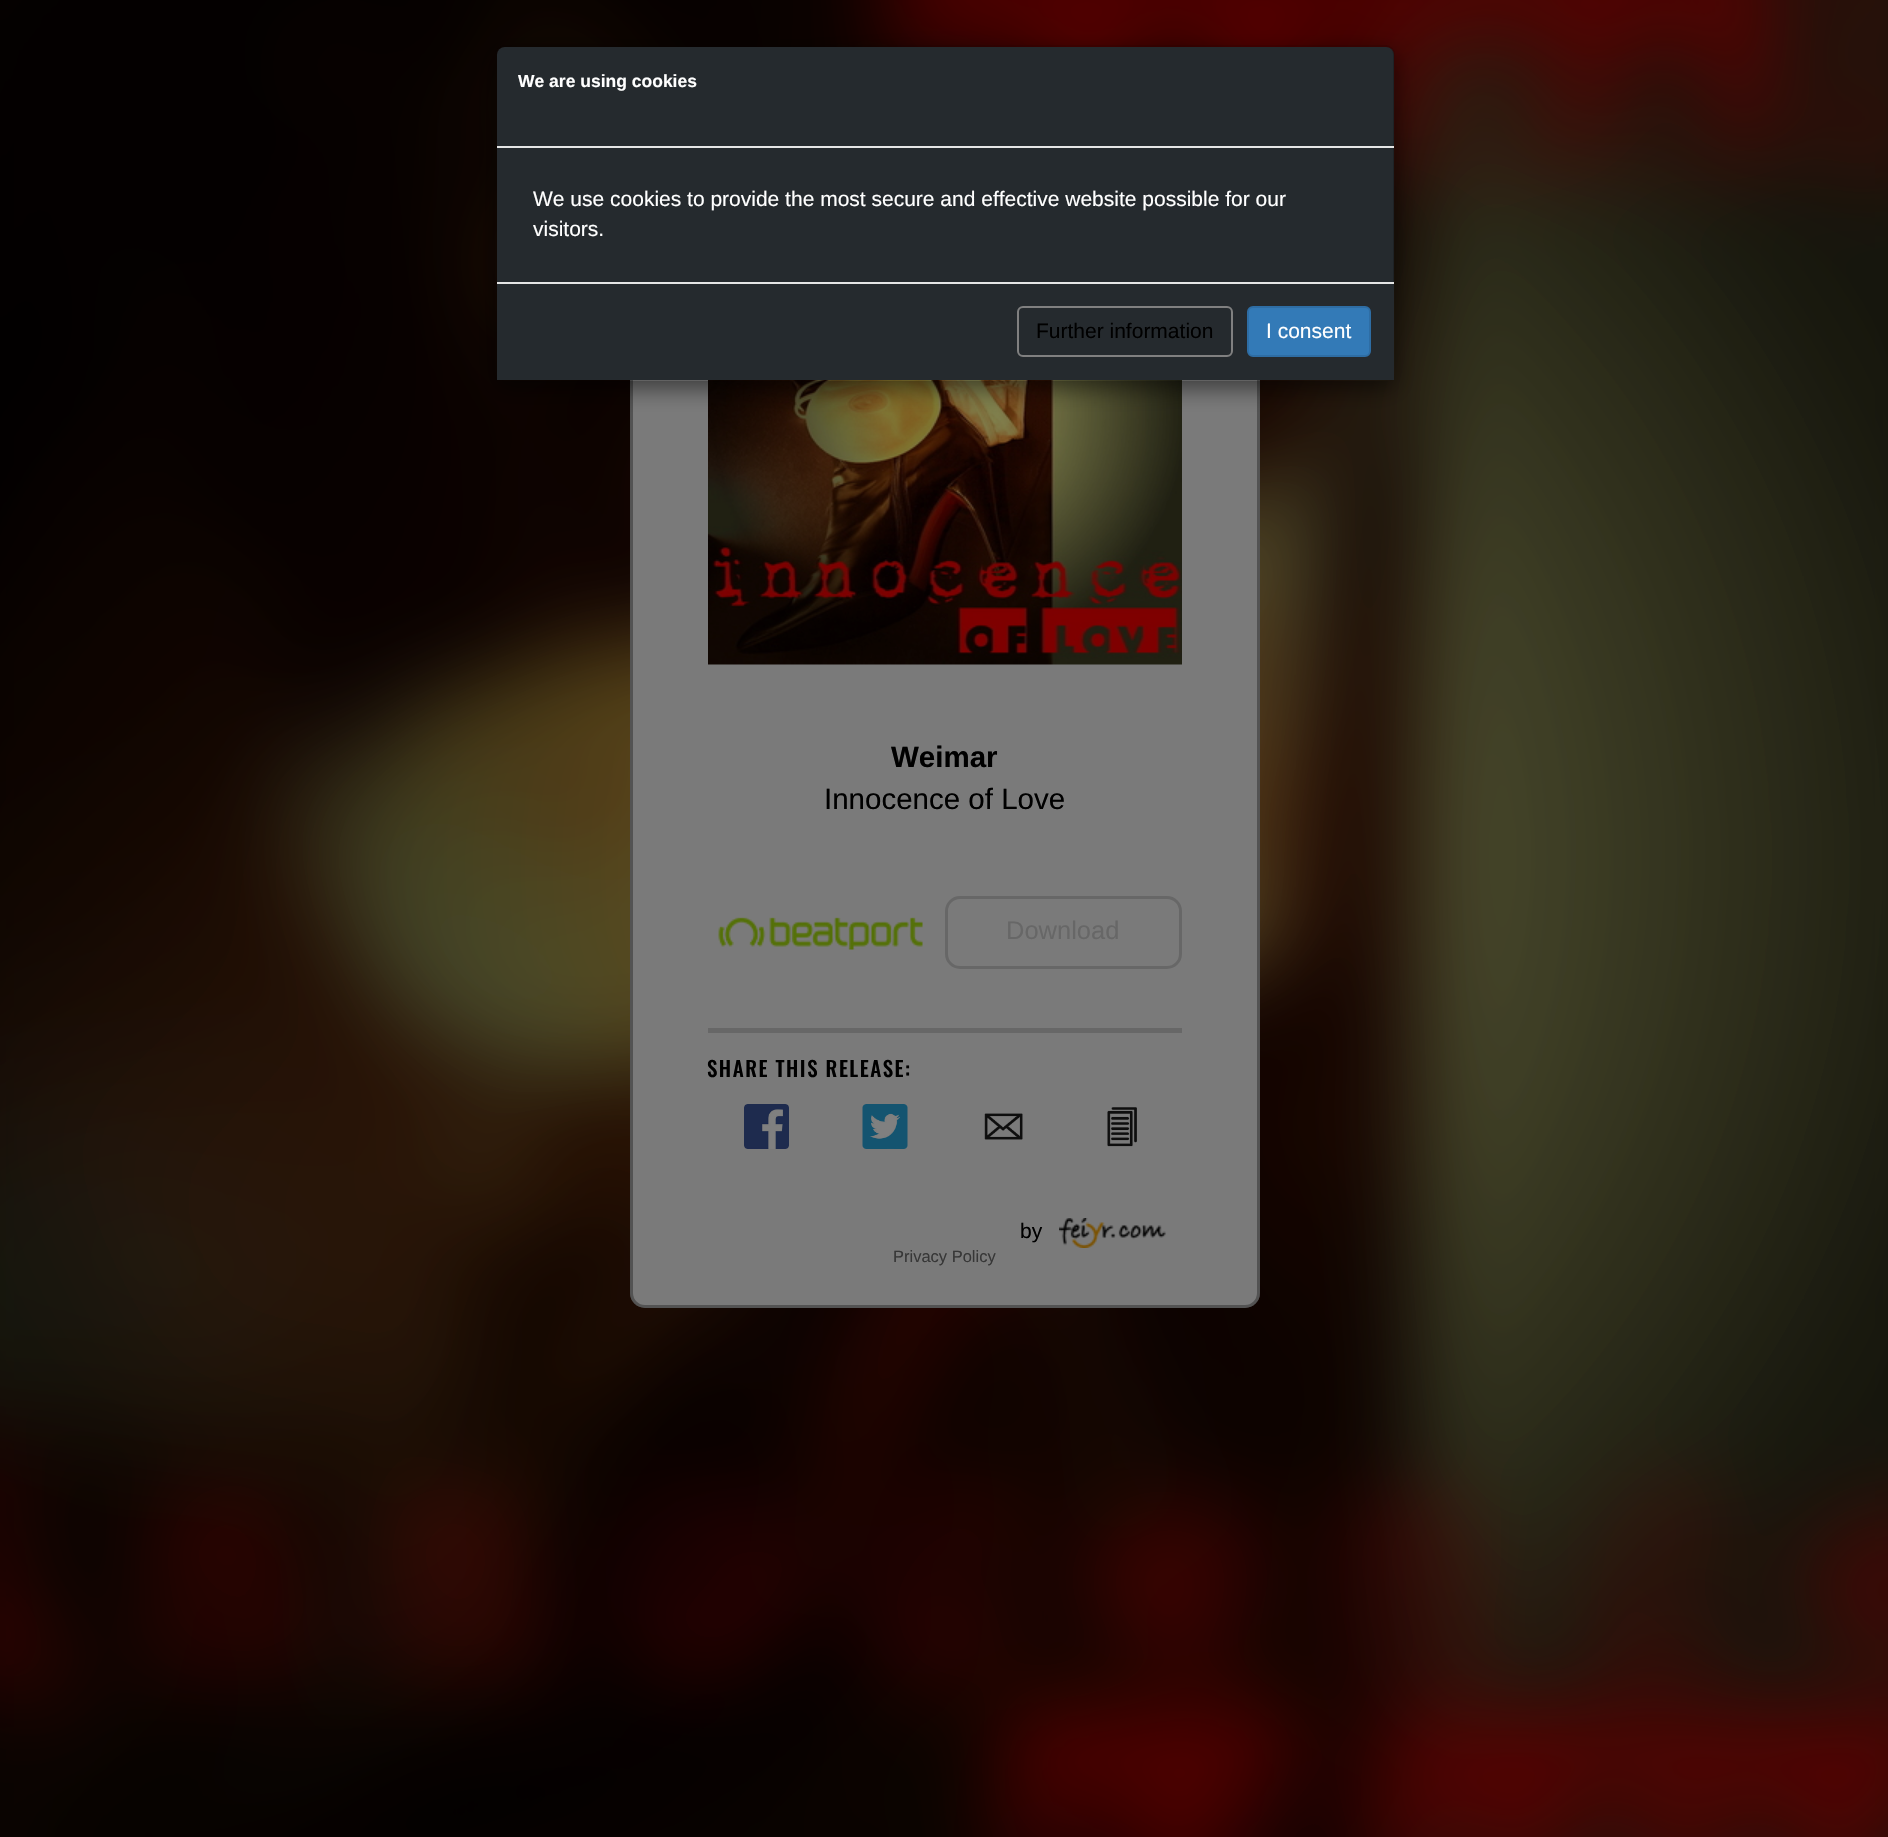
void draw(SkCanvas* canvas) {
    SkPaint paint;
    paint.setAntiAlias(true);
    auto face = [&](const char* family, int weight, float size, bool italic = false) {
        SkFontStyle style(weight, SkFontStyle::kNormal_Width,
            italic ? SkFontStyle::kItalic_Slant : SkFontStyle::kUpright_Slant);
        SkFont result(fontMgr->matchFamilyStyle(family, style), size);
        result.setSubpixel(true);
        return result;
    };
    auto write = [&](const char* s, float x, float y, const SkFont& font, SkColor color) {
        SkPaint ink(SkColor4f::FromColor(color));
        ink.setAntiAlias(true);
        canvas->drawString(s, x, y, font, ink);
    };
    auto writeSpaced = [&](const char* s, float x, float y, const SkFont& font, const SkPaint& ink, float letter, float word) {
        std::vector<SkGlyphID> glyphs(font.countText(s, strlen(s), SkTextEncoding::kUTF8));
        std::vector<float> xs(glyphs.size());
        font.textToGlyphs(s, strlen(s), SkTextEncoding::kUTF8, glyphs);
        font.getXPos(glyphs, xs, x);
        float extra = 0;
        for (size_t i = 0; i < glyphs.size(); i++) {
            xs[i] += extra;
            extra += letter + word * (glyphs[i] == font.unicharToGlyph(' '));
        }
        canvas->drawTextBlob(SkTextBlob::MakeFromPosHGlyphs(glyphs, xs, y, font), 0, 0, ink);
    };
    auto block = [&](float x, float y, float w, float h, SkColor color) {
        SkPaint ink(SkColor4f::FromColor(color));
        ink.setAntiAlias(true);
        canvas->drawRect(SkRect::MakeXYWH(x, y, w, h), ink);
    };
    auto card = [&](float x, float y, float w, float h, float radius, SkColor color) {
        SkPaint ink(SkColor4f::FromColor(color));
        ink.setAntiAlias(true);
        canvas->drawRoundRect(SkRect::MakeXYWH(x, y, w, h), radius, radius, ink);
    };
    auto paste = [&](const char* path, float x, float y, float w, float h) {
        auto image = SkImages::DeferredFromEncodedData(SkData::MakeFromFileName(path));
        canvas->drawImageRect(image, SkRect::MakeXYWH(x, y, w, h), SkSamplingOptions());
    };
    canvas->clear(SK_ColorBLACK);
    paste("pic1.png", 0, 0, 1888, 1837);
    card(630, 150, 630, 1158, 15, SkColorSetRGB(122, 122, 122));
    paint.setStyle(SkPaint::kStroke_Style);
    paint.setStrokeWidth(3);
    paint.setColor(SkColorSetARGB(82, 0, 0, 0));
    canvas->drawRoundRect(SkRect::MakeXYWH(631.5f, 151.5f, 627, 1155), 13.5f, 13.5f, paint);
    paste("pic2.png", 708, 380, 474, 285);
    canvas->save();
    canvas->clipPath(SkPathBuilder(SkPathFillType::kEvenOdd).moveTo(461, 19).lineTo(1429, 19).lineTo(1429, 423).lineTo(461, 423).close().moveTo(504, 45).lineTo(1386, 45).cubicTo(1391, 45, 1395, 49, 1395, 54).lineTo(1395, 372).cubicTo(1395, 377, 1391, 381, 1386, 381).lineTo(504, 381).cubicTo(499, 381, 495, 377, 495, 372).lineTo(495, 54).cubicTo(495, 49, 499, 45, 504, 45).close().detach(), true);
    paint.setStyle(SkPaint::kFill_Style);
    paint.setColor(SkColorSetARGB(128, 0, 0, 0));
    paint.setMaskFilter(SkMaskFilter::MakeBlur(kNormal_SkBlurStyle, 11));
    canvas->drawRoundRect(SkRect::MakeXYWH(495, 53, 900, 336), 9, 9, paint);
    paint.setMaskFilter(nullptr);
    canvas->restore();
    card(497, 47, 897, 333, 8, SkColorSetRGB(37, 42, 46));
    paint.setStyle(SkPaint::kStroke_Style);
    paint.setStrokeWidth(2);
    paint.setColor(SkColorSetARGB(51, 0, 0, 0));
    canvas->drawRoundRect(SkRect::MakeXYWH(496, 46, 898, 334), 8, 8, paint);
    block(497, 146, 897, 2, SkColorSetRGB(229, 229, 229));
    auto kFont1 = face("Liberation Sans", 700, 17.5f);
    write("We are using cookies", 518, 87, kFont1, SK_ColorWHITE);
    auto kFont2 = face("Liberation Sans", 400, 21);
    write("We use cookies to provide the most secure and effective website possible for our", 533, 206, kFont2, SK_ColorWHITE);
    write("visitors.", 533, 236, kFont2, SK_ColorWHITE);
    block(497, 284, 897, 96, SkColorSetRGB(37, 42, 46));
    block(497, 282, 897, 2, SkColorSetRGB(229, 229, 229));
    paint.setColor(SkColorSetRGB(128, 128, 128));
    canvas->drawRoundRect(SkRect::MakeXYWH(1018, 307, 214, 49), 5, 5, paint);
    write("Further information", 1036, 338, kFont2, SK_ColorBLACK);
    paint.setStyle(SkPaint::kFill_Style);
    paint.setColor(SkColorSetRGB(51, 122, 183));
    canvas->drawRoundRect(SkRect::MakeXYWH(1248, 307, 122, 49), 5, 5, paint);
    paint.setStyle(SkPaint::kStroke_Style);
    paint.setColor(SkColorSetRGB(46, 109, 164));
    canvas->drawRoundRect(SkRect::MakeXYWH(1248, 307, 122, 49), 5, 5, paint);
    write("I consent", 1266, 338, kFont2, SK_ColorWHITE);
    auto kFont3 = face("Liberation Sans", 700, 29.5f);
    write("Weimar", 891, 767, kFont3, SK_ColorBLACK);
    auto kFont4 = face("Liberation Sans", 400, 29.5f);
    write("Innocence of Love", 824, 809, kFont4, SK_ColorBLACK);
    paste("pic3.png", 718, 917, 205, 33);
    paint.setStrokeWidth(3);
    paint.setColor(SkColorSetRGB(103, 103, 103));
    canvas->drawRoundRect(SkRect::MakeXYWH(946.5f, 897.5f, 234, 70), 13.5f, 13.5f, paint);
    auto kFont5 = face("Liberation Sans", 400, 25.5f);
    write("Download", 1006, 939, kFont5, SkColorSetRGB(103, 103, 103));
    block(708, 1028, 474, 5, SkColorSetRGB(103, 103, 103));
    auto kFont6 = face("Oswald", 500, 21);
    paint.setStyle(SkPaint::kFill_Style);
    paint.setColor(SK_ColorBLACK);
    writeSpaced("SHARE THIS RELEASE:", 707, 1077, kFont6, paint, 1.5f, 0);
    paste("pic4.png", 744, 1104, 45, 45);
    paste("pic5.png", 862, 1104, 46, 45);
    paste("pic6.png", 984, 1113, 39, 27);
    paste("pic7.png", 1107, 1107, 30, 40);
    write("by", 1020, 1238, kFont2, SK_ColorBLACK);
    paste("pic8.png", 1059, 1218, 107, 30);
    auto kFont7 = face("Liberation Sans", 400, 16.5f);
    write("Privacy Policy", 893, 1262, kFont7, SkColorSetRGB(55, 55, 55));
}
